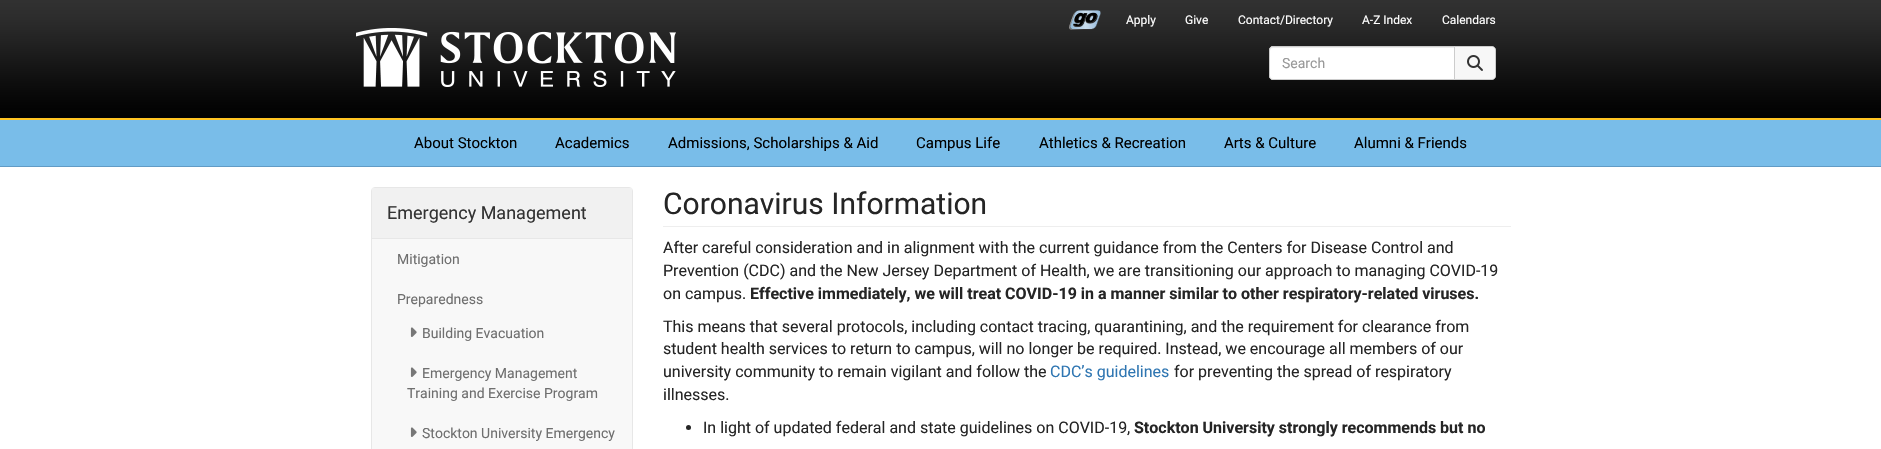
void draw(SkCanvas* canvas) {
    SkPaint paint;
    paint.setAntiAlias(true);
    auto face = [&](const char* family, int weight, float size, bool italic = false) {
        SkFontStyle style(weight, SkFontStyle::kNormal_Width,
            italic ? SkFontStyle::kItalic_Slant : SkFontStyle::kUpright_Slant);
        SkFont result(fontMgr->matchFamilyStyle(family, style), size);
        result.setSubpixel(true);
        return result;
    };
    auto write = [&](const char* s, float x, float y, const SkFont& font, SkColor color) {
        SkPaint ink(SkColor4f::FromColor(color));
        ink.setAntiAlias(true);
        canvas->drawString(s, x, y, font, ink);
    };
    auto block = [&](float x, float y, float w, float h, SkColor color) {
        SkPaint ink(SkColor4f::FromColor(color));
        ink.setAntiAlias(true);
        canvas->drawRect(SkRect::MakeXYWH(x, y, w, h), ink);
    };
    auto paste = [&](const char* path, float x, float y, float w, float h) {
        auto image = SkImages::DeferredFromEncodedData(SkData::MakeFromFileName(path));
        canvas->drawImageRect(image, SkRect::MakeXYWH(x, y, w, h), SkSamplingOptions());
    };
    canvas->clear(SkColorSetRGB(121, 189, 233));
    paste("pic1.png", 0, 0, 1881, 120);
    block(0, 166, 1881, 1, SkColorSetRGB(97, 155, 197));
    paste("pic2.png", 1069, 10, 32, 20);
    auto kFont1 = face("Roboto", 400, 12);
    write("Apply", 1126, 24, kFont1, SK_ColorWHITE);
    write("Give", 1185, 24, kFont1, SK_ColorWHITE);
    write("Contact/Directory", 1238, 24, kFont1, SK_ColorWHITE);
    write("A-Z Index", 1362, 24, kFont1, SK_ColorWHITE);
    write("Calendars", 1442, 24, kFont1, SK_ColorWHITE);
    paste("pic3.png", 356, 28, 320, 59);
    paint.setColor(SK_ColorWHITE);
    canvas->drawPath(SkPathBuilder().moveTo(1273, 46).lineTo(1455, 46).lineTo(1455, 80).lineTo(1273, 80).cubicTo(1271, 80, 1269, 78, 1269, 76).lineTo(1269, 50).cubicTo(1269, 48, 1271, 46, 1273, 46).close().detach(), paint);
    paint.setColor(SkColorSetRGB(236, 236, 236));
    canvas->drawPath(SkPathBuilder().moveTo(1273, 48).lineTo(1454, 48).lineTo(1454, 47).lineTo(1272, 47).cubicTo(1270, 48, 1270, 49, 1270, 51).cubicTo(1270, 49, 1271, 48, 1273, 48).close().detach(), paint);
    paint.setStyle(SkPaint::kStroke_Style);
    paint.setStrokeWidth(1);
    paint.setColor(SkColorSetRGB(204, 204, 204));
    canvas->drawPath(SkPathBuilder().moveTo(1273, 46.5f).lineTo(1454.5f, 46.5f).lineTo(1454.5f, 79.5f).lineTo(1273, 79.5f).cubicTo(1271, 79.5f, 1269.5f, 78, 1269.5f, 76).lineTo(1269.5f, 50).cubicTo(1269.5f, 48, 1271, 46.5f, 1273, 46.5f).close().detach(), paint);
    auto kFont2 = face("Roboto", 400, 14);
    write("Search", 1282, 68, kFont2, SkColorSetRGB(153, 153, 153));
    paint.setStyle(SkPaint::kFill_Style);
    paint.setColor(SkColorSetRGB(247, 247, 247));
    canvas->drawPath(SkPathBuilder().moveTo(1454.5f, 46.5f).lineTo(1492, 46.5f).cubicTo(1494, 46.5f, 1495.5f, 48, 1495.5f, 50).lineTo(1495.5f, 76).cubicTo(1495.5f, 78, 1494, 79.5f, 1492, 79.5f).lineTo(1454.5f, 79.5f).close().detach(), paint);
    paint.setStyle(SkPaint::kStroke_Style);
    paint.setColor(SkColorSetRGB(204, 204, 204));
    canvas->drawPath(SkPathBuilder().moveTo(1454.5f, 46.5f).lineTo(1492, 46.5f).cubicTo(1494, 46.5f, 1495.5f, 48, 1495.5f, 50).lineTo(1495.5f, 76).cubicTo(1495.5f, 78, 1494, 79.5f, 1492, 79.5f).lineTo(1454.5f, 79.5f).close().detach(), paint);
    paste("pic4.png", 1467, 55, 16, 16);
    auto kFont3 = face("Roboto", 400, 15);
    write("About Stockton", 414, 148, kFont3, SK_ColorBLACK);
    write("Academics", 555, 148, kFont3, SK_ColorBLACK);
    write("Admissions, Scholarships & Aid", 668, 148, kFont3, SK_ColorBLACK);
    write("Campus Life", 916, 148, kFont3, SK_ColorBLACK);
    write("Athletics & Recreation", 1039, 148, kFont3, SK_ColorBLACK);
    write("Arts & Culture", 1224, 148, kFont3, SK_ColorBLACK);
    write("Alumni & Friends", 1354, 148, kFont3, SK_ColorBLACK);
    block(0, 167, 1881, 282, SK_ColorWHITE);
    paint.setStyle(SkPaint::kFill_Style);
    paint.setColor(SkColorSetRGB(248, 248, 248));
    canvas->drawRoundRect(SkRect::MakeXYWH(371.5f, 187.5f, 261, 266), 3.5f, 3.5f, paint);
    paint.setStyle(SkPaint::kStroke_Style);
    paint.setColor(SkColorSetRGB(231, 231, 231));
    canvas->drawRoundRect(SkRect::MakeXYWH(371.5f, 187.5f, 261, 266), 3.5f, 3.5f, paint);
    block(372, 188, 260, 50, SkColorSetRGB(241, 241, 241));
    block(372, 238, 260, 1, SkColorSetRGB(231, 231, 231));
    auto kFont4 = face("Roboto", 400, 18);
    write("Emergency Management", 387, 219, kFont4, SkColorSetRGB(51, 51, 51));
    write("Mitigation", 397, 264, kFont2, SkColorSetRGB(111, 111, 111));
    write("Preparedness", 397, 304, kFont2, SkColorSetRGB(111, 111, 111));
    paste("pic5.png", 410, 327, 7, 10);
    write("Building Evacuation", 422, 338, kFont2, SkColorSetRGB(111, 111, 111));
    paste("pic5.png", 410, 367, 7, 10);
    write("Emergency Management", 422, 378, kFont2, SkColorSetRGB(111, 111, 111));
    write("Training and Exercise Program", 407, 398, kFont2, SkColorSetRGB(111, 111, 111));
    paste("pic5.png", 410, 427, 7, 10);
    write("Stockton University Emergency", 422, 438, kFont2, SkColorSetRGB(111, 111, 111));
    block(663, 226, 848, 1, SkColorSetRGB(238, 238, 238));
    auto kFont5 = face("Roboto", 400, 30);
    write("Coronavirus Information", 663, 214, kFont5, SkColorSetRGB(37, 37, 37));
    auto kFont6 = face("Roboto", 400, 16);
    write("After careful consideration and in alignment with the current guidance from the Centers for Disease Control and", 663, 253, kFont6, SkColorSetRGB(37, 37, 37));
    write("Prevention (CDC) and the New Jersey Department of Health, we are transitioning our approach to managing COVID-19", 663, 276, kFont6, SkColorSetRGB(37, 37, 37));
    write("on campus.", 663, 299, kFont6, SkColorSetRGB(37, 37, 37));
    auto kFont7 = face("Roboto", 700, 16);
    write("Effective immediately, we will treat COVID-19 in a manner similar to other respiratory-related viruses.", 750, 299, kFont7, SkColorSetRGB(37, 37, 37));
    write("This means that several protocols, including contact tracing, quarantining, and the requirement for clearance from", 663, 332, kFont6, SkColorSetRGB(37, 37, 37));
    write("student health services to return to campus, will no longer be required. Instead, we encourage all members of our", 663, 354, kFont6, SkColorSetRGB(37, 37, 37));
    write("university community to remain vigilant and follow the", 663, 377, kFont6, SkColorSetRGB(37, 37, 37));
    write("CDC’s guidelines", 1050, 377, kFont6, SkColorSetRGB(47, 118, 178));
    write("for preventing the spread of respiratory", 1174, 377, kFont6, SkColorSetRGB(37, 37, 37));
    write("illnesses.", 663, 400, kFont6, SkColorSetRGB(37, 37, 37));
    paint.setStyle(SkPaint::kFill_Style);
    paint.setColor(SkColorSetRGB(37, 37, 37));
    canvas->drawCircle(688.5f, 427.5f, 2.5f, paint);
    write("In light of updated federal and state guidelines on COVID-19,", 703, 433, kFont6, SkColorSetRGB(37, 37, 37));
    write("Stockton University strongly recommends but no", 1134, 433, kFont7, SkColorSetRGB(37, 37, 37));
}
